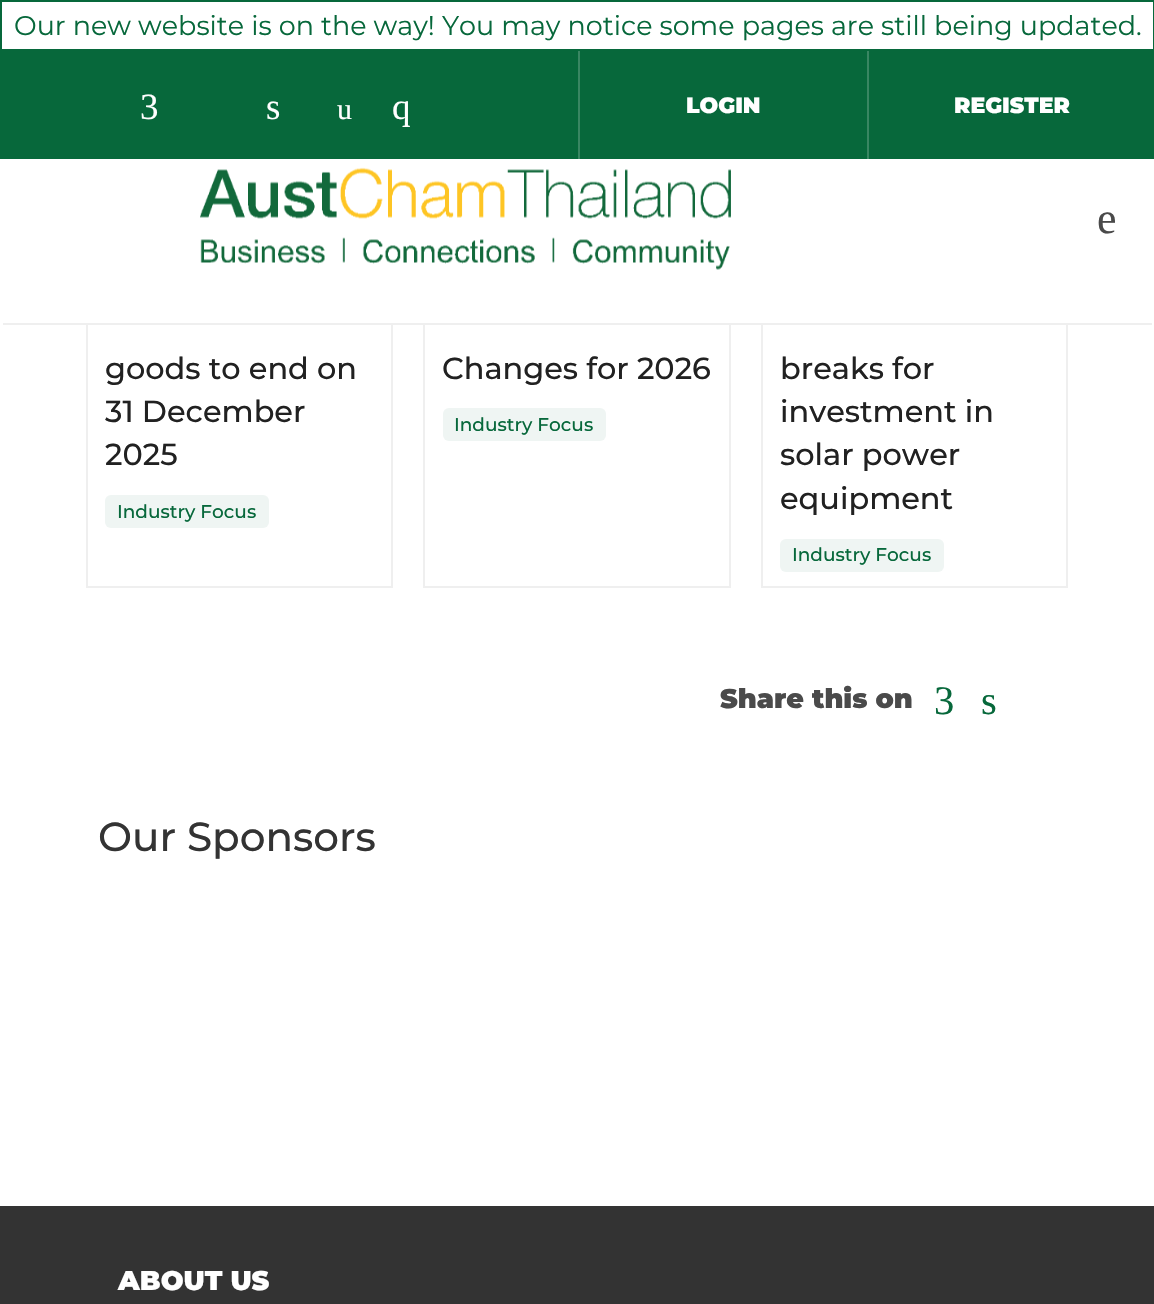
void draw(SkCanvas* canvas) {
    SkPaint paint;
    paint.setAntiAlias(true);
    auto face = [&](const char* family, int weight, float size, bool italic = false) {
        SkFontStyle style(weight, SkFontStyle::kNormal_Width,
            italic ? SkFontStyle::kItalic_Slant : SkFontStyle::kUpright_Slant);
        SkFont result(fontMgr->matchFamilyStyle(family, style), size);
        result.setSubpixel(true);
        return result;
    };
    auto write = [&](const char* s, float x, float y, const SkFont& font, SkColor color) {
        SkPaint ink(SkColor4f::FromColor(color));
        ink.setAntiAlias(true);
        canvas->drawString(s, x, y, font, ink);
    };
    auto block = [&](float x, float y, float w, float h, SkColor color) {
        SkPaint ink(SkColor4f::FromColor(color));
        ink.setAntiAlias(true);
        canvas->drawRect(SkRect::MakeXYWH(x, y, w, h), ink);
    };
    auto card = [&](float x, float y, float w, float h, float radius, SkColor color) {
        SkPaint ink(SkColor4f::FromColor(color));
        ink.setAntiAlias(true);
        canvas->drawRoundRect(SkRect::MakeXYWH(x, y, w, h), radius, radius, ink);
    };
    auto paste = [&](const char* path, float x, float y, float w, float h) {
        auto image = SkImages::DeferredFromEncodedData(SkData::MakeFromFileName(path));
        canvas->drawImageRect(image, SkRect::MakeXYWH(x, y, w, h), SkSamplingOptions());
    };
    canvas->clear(SK_ColorWHITE);
    paint.setStyle(SkPaint::kStroke_Style);
    paint.setStrokeWidth(2);
    paint.setColor(SkColorSetRGB(239, 239, 239));
    canvas->drawRect(SkRect::MakeXYWH(87, 9, 305, 578), paint);
    canvas->drawRect(SkRect::MakeXYWH(424, 9, 306, 578), paint);
    canvas->drawRect(SkRect::MakeXYWH(762, 9, 305, 578), paint);
    card(0, 0, 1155, 324, 6, SK_ColorWHITE);
    block(3, 323, 1149, 2, SkColorSetRGB(239, 239, 239));
    paint.setColor(SkColorSetRGB(7, 104, 59));
    canvas->drawRect(SkRect::MakeXYWH(1, 1, 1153, 49), paint);
    auto kFont1 = face("Montserrat", 400, 27);
    write("Our new website is on the way! You may notice some pages are still being updated.", 14, 35, kFont1, SkColorSetRGB(7, 104, 59));
    block(0, 51, 1154, 108, SkColorSetRGB(7, 104, 59));
    auto kFont2 = face("Liberation Serif", 400, 37);
    write("3", 140, 119, kFont2, SK_ColorWHITE);
    write("s", 266, 119, kFont2, SK_ColorWHITE);
    auto kFont3 = face("Liberation Serif", 400, 30);
    write("u", 337, 119, kFont3, SK_ColorWHITE);
    write("q", 392, 119, kFont2, SK_ColorWHITE);
    block(578, 51, 2, 108, SkColorSetRGB(57, 134, 98));
    auto kFont4 = face("Montserrat", 900, 22);
    write("LOGIN", 686, 113, kFont4, SK_ColorWHITE);
    block(867, 51, 2, 108, SkColorSetRGB(57, 134, 98));
    write("REGISTER", 954, 113, kFont4, SK_ColorWHITE);
    paste("pic1.png", 200, 167, 531, 103);
    auto kFont5 = face("Liberation Serif", 400, 44);
    write("e", 1097, 233, kFont5, SkColorSetRGB(74, 74, 74));
    auto kFont6 = face("Montserrat", 500, 30.4f);
    write("goods to end on", 105, 379, kFont6, SkColorSetRGB(33, 33, 33));
    write("31 December", 105, 422, kFont6, SkColorSetRGB(33, 33, 33));
    write("2025", 105, 465, kFont6, SkColorSetRGB(33, 33, 33));
    card(105, 495, 164, 33, 6, SkColorSetRGB(239, 245, 243));
    auto kFont7 = face("Montserrat", 500, 18.5f);
    write("Industry Focus", 117, 518, kFont7, SkColorSetRGB(7, 104, 59));
    write("Changes for 2026", 442, 379, kFont6, SkColorSetRGB(33, 33, 33));
    card(443, 408, 163, 33, 6, SkColorSetRGB(239, 245, 243));
    write("Industry Focus", 454, 431, kFont7, SkColorSetRGB(7, 104, 59));
    write("breaks for", 780, 379, kFont6, SkColorSetRGB(33, 33, 33));
    write("investment in", 780, 422, kFont6, SkColorSetRGB(33, 33, 33));
    write("solar power", 780, 465, kFont6, SkColorSetRGB(33, 33, 33));
    write("equipment", 780, 509, kFont6, SkColorSetRGB(33, 33, 33));
    card(780, 539, 164, 33, 6, SkColorSetRGB(239, 245, 243));
    write("Industry Focus", 792, 561, kFont7, SkColorSetRGB(7, 104, 59));
    auto kFont8 = face("Montserrat", 900, 27);
    write("Share this on", 720, 708, kFont8, SkColorSetRGB(74, 74, 74));
    auto kFont9 = face("Liberation Serif", 400, 40.5f);
    write("3", 934, 714, kFont9, SkColorSetRGB(7, 104, 59));
    write("s", 981, 714, kFont9, SkColorSetRGB(7, 104, 59));
    auto kFont10 = face("Montserrat", 500, 40.5f);
    write("Our Sponsors", 98, 851, kFont10, SkColorSetRGB(51, 51, 51));
    block(0, 1206, 1154, 98, SkColorSetRGB(51, 51, 51));
    write("ABOUT US", 118, 1290, kFont8, SK_ColorWHITE);
}
